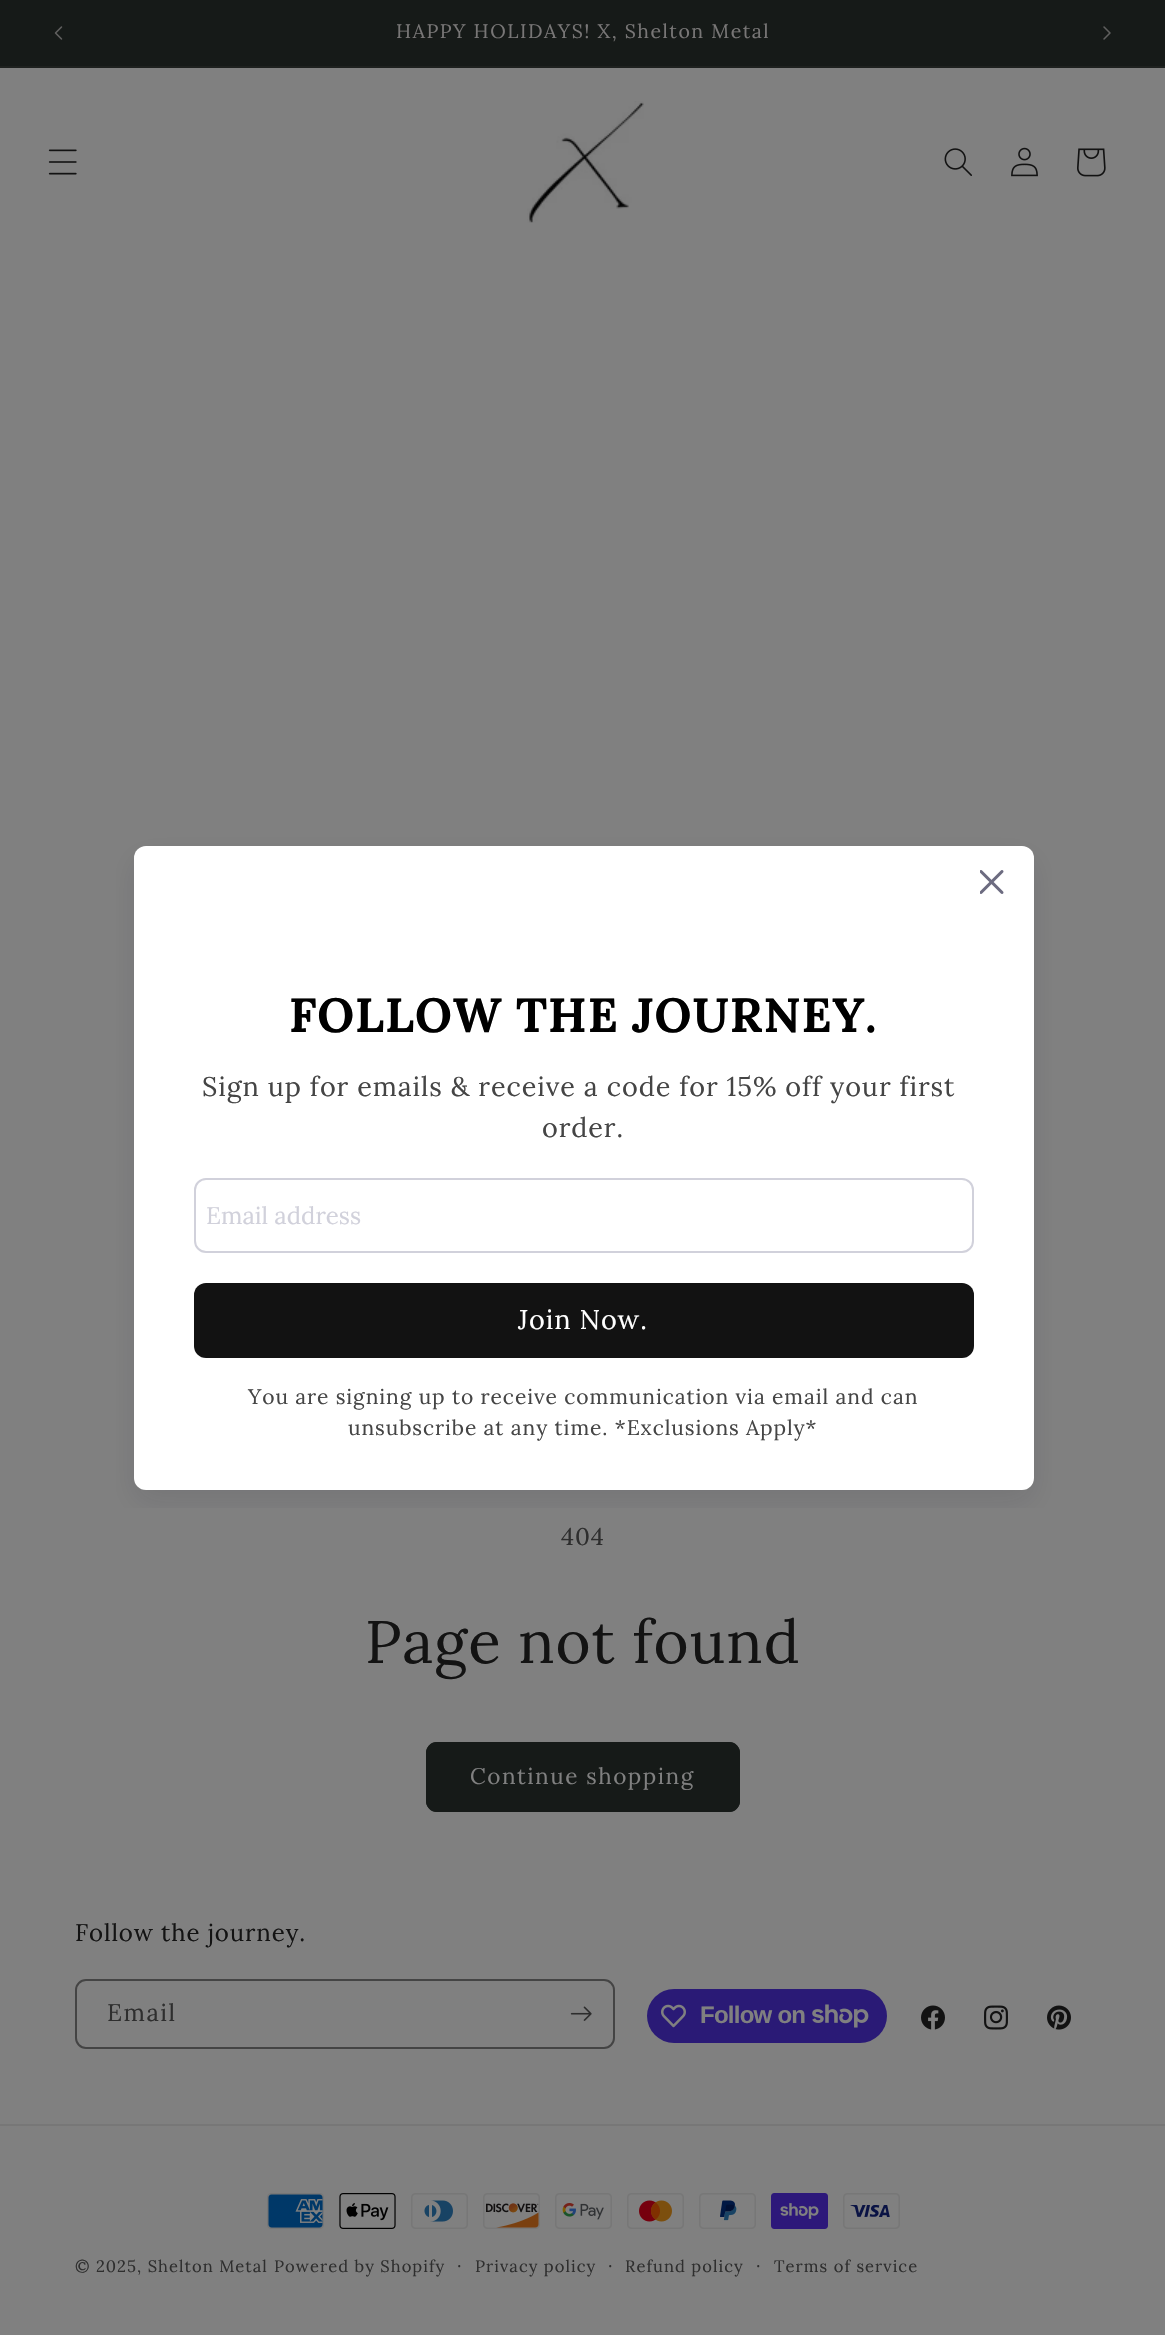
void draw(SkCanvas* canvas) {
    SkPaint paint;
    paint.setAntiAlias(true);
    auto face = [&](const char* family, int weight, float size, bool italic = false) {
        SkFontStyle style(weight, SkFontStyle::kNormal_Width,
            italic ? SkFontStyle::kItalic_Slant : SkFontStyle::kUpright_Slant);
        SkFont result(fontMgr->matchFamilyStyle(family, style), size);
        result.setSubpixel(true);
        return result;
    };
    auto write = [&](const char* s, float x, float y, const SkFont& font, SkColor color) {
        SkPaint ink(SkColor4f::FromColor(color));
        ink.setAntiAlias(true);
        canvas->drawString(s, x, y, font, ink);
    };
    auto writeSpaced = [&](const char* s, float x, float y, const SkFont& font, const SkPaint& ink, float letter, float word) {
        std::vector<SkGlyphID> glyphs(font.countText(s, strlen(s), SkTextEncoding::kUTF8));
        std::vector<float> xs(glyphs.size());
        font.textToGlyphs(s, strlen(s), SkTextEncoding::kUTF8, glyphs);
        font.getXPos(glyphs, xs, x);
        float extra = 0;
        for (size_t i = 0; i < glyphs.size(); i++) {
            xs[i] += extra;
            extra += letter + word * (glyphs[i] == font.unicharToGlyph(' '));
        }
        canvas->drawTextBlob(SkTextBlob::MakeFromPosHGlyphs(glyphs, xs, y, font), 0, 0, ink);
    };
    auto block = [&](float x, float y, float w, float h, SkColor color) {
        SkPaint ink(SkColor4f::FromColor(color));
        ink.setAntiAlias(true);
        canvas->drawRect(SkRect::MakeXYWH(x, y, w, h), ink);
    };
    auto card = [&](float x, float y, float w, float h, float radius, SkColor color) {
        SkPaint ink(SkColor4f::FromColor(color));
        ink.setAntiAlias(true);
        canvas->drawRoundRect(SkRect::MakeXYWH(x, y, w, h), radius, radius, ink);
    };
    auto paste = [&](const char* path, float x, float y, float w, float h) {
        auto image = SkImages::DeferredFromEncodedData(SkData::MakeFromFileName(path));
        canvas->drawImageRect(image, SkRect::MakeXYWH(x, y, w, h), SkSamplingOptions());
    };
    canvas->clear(SkColorSetRGB(128, 128, 128));
    block(0, 0, 1165, 66, SkColorSetRGB(22, 26, 24));
    block(0, 66, 1165, 2, SkColorSetRGB(30, 33, 31));
    paste("pic1.png", 54, 26, 9, 14);
    auto kFont1 = face("Lora", 400, 19.5f);
    paint.setColor(SkColorSetRGB(120, 118, 118));
    writeSpaced("HAPPY HOLIDAYS! X, Shelton Metal", 396, 38, kFont1, paint, 1.5f, 0);
    paste("pic2.png", 1103, 26, 8, 14);
    paste("pic3.png", 48, 149, 29, 26);
    paste("pic4.png", 527, 101, 117, 122);
    paste("pic5.png", 944, 148, 28, 28);
    paste("pic6.png", 1011, 147, 27, 30);
    paste("pic7.png", 1077, 148, 29, 29);
    canvas->save();
    canvas->clipRect(SkRect::MakeXYWH(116, 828, 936, 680));
    paint.setColor(SkColorSetARGB(26, 18, 17, 39));
    paint.setMaskFilter(SkMaskFilter::MakeBlur(kNormal_SkBlurStyle, 15));
    canvas->drawRoundRect(SkRect::MakeXYWH(134, 858, 900, 644), 12, 12, paint);
    paint.setMaskFilter(nullptr);
    canvas->restore();
    card(134, 846, 900, 644, 12, SK_ColorWHITE);
    paste("pic8.png", 980, 870, 24, 24);
    auto kFont2 = face("Lora", 700, 48);
    paint.setColor(SK_ColorBLACK);
    writeSpaced("FOLLOW THE JOURNEY.", 289, 1032, kFont2, paint, 0.9f, 0);
    auto kFont3 = face("Lora", 400, 27);
    paint.setColor(SkColorSetRGB(69, 69, 69));
    writeSpaced("Sign up for emails & receive a code for 15% off your first", 202, 1096, kFont3, paint, 0.9f, 0);
    writeSpaced("order.", 542, 1137, kFont3, paint, 0.9f, 0);
    paint.setStyle(SkPaint::kStroke_Style);
    paint.setStrokeWidth(2);
    paint.setColor(SkColorSetRGB(209, 209, 219));
    canvas->drawRoundRect(SkRect::MakeXYWH(195, 1179, 778, 73), 11, 11, paint);
    auto kFont4 = face("Lora", 400, 24);
    write("Email address", 206, 1224, kFont4, SkColorSetRGB(209, 209, 219));
    card(194, 1283, 780, 75, 12, SkColorSetRGB(18, 18, 18));
    paint.setStyle(SkPaint::kFill_Style);
    paint.setColor(SK_ColorWHITE);
    writeSpaced("Join Now.", 518, 1329, kFont3, paint, 0.9f, 0);
    auto kFont5 = face("Lora", 400, 21);
    paint.setColor(SkColorSetRGB(69, 69, 69));
    writeSpaced("You are signing up to receive communication via email and can", 248, 1404, kFont5, paint, 0.9f, 0);
    writeSpaced("unsubscribe at any time. *Exclusions Apply*", 348, 1435, kFont5, paint, 0.9f, 0);
    paint.setColor(SkColorSetRGB(46, 46, 46));
    writeSpaced("404", 561, 1545, kFont4, paint, 0.9f, 0);
    auto kFont6 = face("Lora", 400, 60);
    paint.setColor(SkColorSetRGB(19, 19, 19));
    writeSpaced("Page not found", 365, 1663, kFont6, paint, 0.9f, 0);
    card(426, 1742, 314, 70, 11, SkColorSetRGB(22, 26, 24));
    paint.setStyle(SkPaint::kStroke_Style);
    paint.setColor(SkColorSetRGB(22, 26, 24));
    canvas->drawRoundRect(SkRect::MakeXYWH(427, 1743, 312, 68), 10, 10, paint);
    auto kFont7 = face("Lora", 400, 22.5f);
    paint.setStyle(SkPaint::kFill_Style);
    paint.setColor(SkColorSetRGB(128, 128, 128));
    writeSpaced("Continue shopping", 470, 1784, kFont7, paint, 1.5f, 0);
    paint.setColor(SkColorSetRGB(19, 19, 19));
    writeSpaced("Follow the journey.", 75, 1941, kFont4, paint, 0.9f, 0);
    paint.setStyle(SkPaint::kStroke_Style);
    paint.setColor(SkColorSetRGB(68, 68, 68));
    canvas->drawRoundRect(SkRect::MakeXYWH(76, 1980, 538, 68), 10, 10, paint);
    paint.setStyle(SkPaint::kFill_Style);
    paint.setColor(SkColorSetRGB(46, 46, 46));
    writeSpaced("Email", 107, 2021, kFont4, paint, 1.5f, 0);
    paste("pic9.png", 570, 2006, 22, 15);
    card(647, 1989, 240, 54, 27, SkColorSetRGB(42, 26, 118));
    paste("pic10.png", 661, 2004, 25, 24);
    auto kFont8 = face("Liberation Sans", 700, 24);
    paint.setColor(SkColorSetRGB(128, 128, 128));
    writeSpaced("Follow on", 700, 2023, kFont8, paint, -0.75f, 0);
    paste("pic11.png", 812, 2004, 57, 24);
    paste("pic12.png", 921, 2005, 24, 25);
    paste("pic13.png", 984, 2005, 24, 25);
    paste("pic14.png", 1047, 2005, 24, 25);
    block(0, 2124, 1165, 2, SkColorSetRGB(119, 119, 119));
    paste("pic15.png", 267, 2193, 57, 36);
    paste("pic16.png", 339, 2193, 57, 36);
    paste("pic17.png", 411, 2193, 57, 36);
    paste("pic18.png", 483, 2193, 57, 36);
    paste("pic19.png", 555, 2193, 57, 36);
    paste("pic20.png", 627, 2193, 57, 36);
    paste("pic21.png", 699, 2193, 57, 36);
    paste("pic22.png", 771, 2193, 57, 36);
    paste("pic23.png", 843, 2193, 57, 36);
    auto kFont9 = face("Lora", 400, 16.5f);
    paint.setColor(SkColorSetRGB(46, 46, 46));
    writeSpaced("© 2025, Shelton Metal", 75, 2272, kFont9, paint, 1.05f, 0);
    writeSpaced("Powered by Shopify", 274, 2272, kFont9, paint, 1.05f, 0);
    auto kFont10 = face("Lora", 400, 18);
    writeSpaced("·", 457, 2272, kFont10, paint, 1.05f, 0);
    writeSpaced("Privacy policy", 475, 2272, kFont9, paint, 1.05f, 0);
    writeSpaced("·", 608, 2272, kFont10, paint, 1.05f, 0);
    writeSpaced("Refund policy", 625, 2272, kFont9, paint, 1.05f, 0);
    writeSpaced("·", 756, 2272, kFont10, paint, 1.05f, 0);
    writeSpaced("Terms of service", 774, 2272, kFont9, paint, 1.05f, 0);
}
